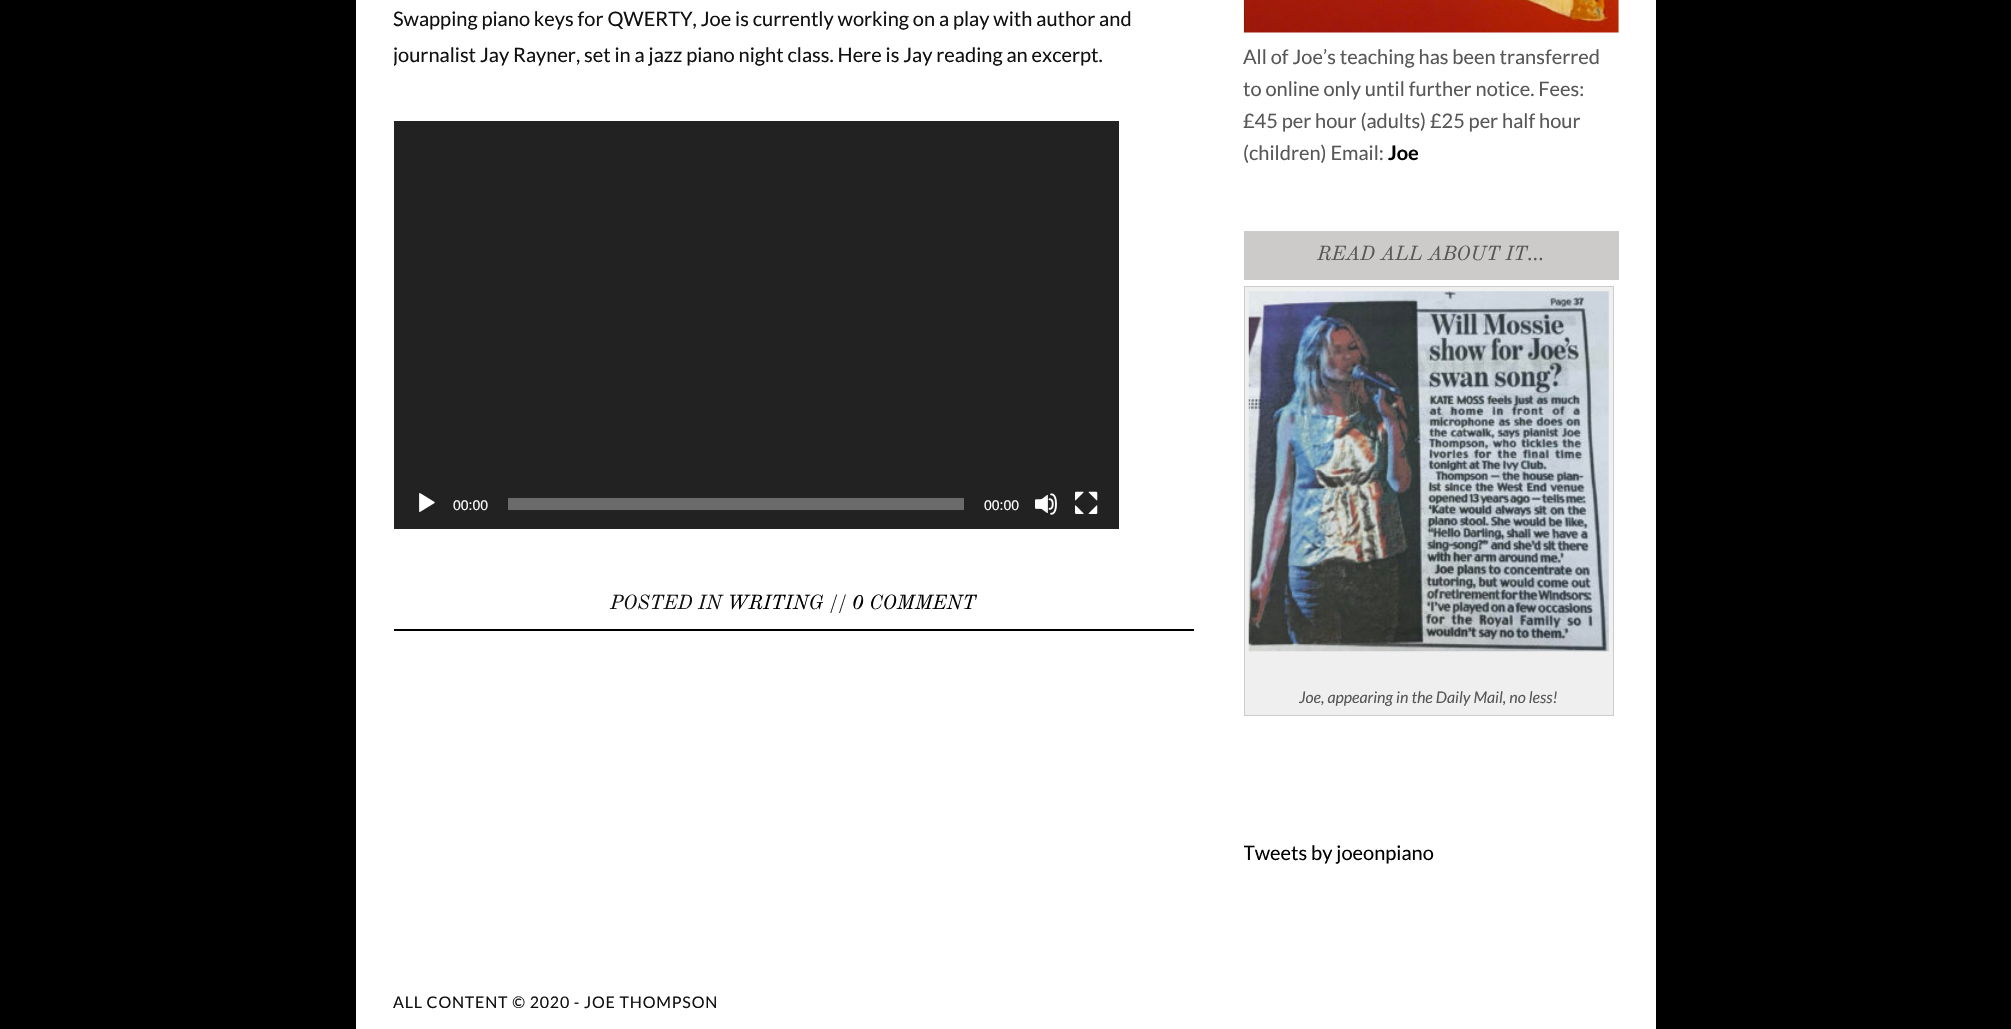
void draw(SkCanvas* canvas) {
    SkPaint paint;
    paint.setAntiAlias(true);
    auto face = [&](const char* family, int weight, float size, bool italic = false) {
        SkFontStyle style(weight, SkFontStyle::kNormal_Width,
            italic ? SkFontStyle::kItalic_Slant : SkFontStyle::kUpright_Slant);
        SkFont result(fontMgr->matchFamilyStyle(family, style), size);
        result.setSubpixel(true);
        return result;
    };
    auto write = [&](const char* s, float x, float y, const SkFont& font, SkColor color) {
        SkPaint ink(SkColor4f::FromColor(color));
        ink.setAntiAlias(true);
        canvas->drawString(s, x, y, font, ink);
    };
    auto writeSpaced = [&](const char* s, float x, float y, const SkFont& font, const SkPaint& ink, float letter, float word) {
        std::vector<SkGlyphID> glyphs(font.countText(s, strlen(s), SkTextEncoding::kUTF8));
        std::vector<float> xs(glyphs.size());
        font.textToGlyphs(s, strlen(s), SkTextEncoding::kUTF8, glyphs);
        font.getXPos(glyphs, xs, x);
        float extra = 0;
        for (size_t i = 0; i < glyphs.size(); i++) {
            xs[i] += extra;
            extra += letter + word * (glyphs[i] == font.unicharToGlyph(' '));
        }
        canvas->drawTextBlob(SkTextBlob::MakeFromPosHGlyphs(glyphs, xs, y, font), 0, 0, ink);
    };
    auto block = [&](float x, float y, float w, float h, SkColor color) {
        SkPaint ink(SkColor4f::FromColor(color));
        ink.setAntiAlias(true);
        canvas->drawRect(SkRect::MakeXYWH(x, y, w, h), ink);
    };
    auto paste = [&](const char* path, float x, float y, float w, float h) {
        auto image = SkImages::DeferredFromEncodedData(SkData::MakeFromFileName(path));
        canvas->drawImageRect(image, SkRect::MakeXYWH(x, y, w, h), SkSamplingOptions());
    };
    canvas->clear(SK_ColorBLACK);
    block(356, 0, 1300, 1029, SK_ColorWHITE);
    auto kFont1 = face("Lato", 400, 20);
    write("Swapping piano keys for QWERTY, Joe is currently working on a play with author and", 393, 26, kFont1, SkColorSetRGB(17, 17, 17));
    canvas->save();
    canvas->clipRect(SkRect::MakeXYWH(394, 0, 800, 631));
    write("journalist Jay Rayner, set in a jazz piano night class. Here is Jay reading an excerpt.", 393, 62, kFont1, SkColorSetRGB(17, 17, 17));
    canvas->restore();
    block(394, 121, 725, 408, SkColorSetRGB(34, 34, 34));
    paste("pic1.png", 419, 493, 16, 19);
    auto kFont2 = face("Liberation Sans", 400, 14);
    write("00:00", 453, 510, kFont2, SK_ColorWHITE);
    block(508, 498, 456, 12, SkColorSetRGB(107, 107, 107));
    write("00:00", 984, 510, kFont2, SK_ColorWHITE);
    paste("pic2.png", 1035, 493, 22, 22);
    paste("pic3.png", 1075, 491, 23, 23);
    block(394, 629, 800, 2, SK_ColorBLACK);
    auto kFont3 = face("Old Standard TT", 400, 20, true);
    write("POSTED IN", 610, 609, kFont3, SkColorSetRGB(17, 17, 17));
    write("WRITING", 727, 609, kFont3, SK_ColorBLACK);
    write("//", 829, 609, kFont3, SkColorSetRGB(17, 17, 17));
    write("0 COMMENT", 852, 609, kFont3, SK_ColorBLACK);
    paste("pic4.png", 1243, 0, 376, 33);
    write("All of Joe’s teaching has been transferred", 1243, 64, kFont1, SkColorSetRGB(88, 87, 87));
    write("to online only until further notice. Fees:", 1243, 96, kFont1, SkColorSetRGB(88, 87, 87));
    write("£45 per hour (adults) £25 per half hour", 1243, 128, kFont1, SkColorSetRGB(88, 87, 87));
    write("(children) Email:", 1243, 160, kFont1, SkColorSetRGB(88, 87, 87));
    auto kFont4 = face("Lato", 700, 20);
    write("Joe", 1388, 160, kFont4, SK_ColorBLACK);
    block(1244, 231, 375, 49, SkColorSetRGB(205, 202, 202));
    write("READ ALL ABOUT IT…", 1317, 260, kFont3, SkColorSetRGB(88, 87, 87));
    paint.setColor(SkColorSetRGB(239, 239, 239));
    canvas->drawRect(SkRect::MakeXYWH(1244.5f, 286.5f, 369, 429), paint);
    paint.setStyle(SkPaint::kStroke_Style);
    paint.setStrokeWidth(1);
    paint.setColor(SkColorSetRGB(204, 204, 204));
    canvas->drawRect(SkRect::MakeXYWH(1244.5f, 286.5f, 369, 429), paint);
    paste("pic5.png", 1248, 291, 361, 361);
    auto kFont5 = face("Lato", 400, 16, true);
    write("Joe, appearing in the Daily Mail, no less!", 1299, 703, kFont5, SkColorSetRGB(88, 87, 87));
    canvas->save();
    canvas->clipRect(SkRect::MakeXYWH(1244, 840, 375, 24));
    write("Tweets by joeonpiano", 1243, 860, kFont1, SK_ColorBLACK);
    canvas->restore();
    auto kFont6 = face("Lato", 400, 16);
    paint.setStyle(SkPaint::kFill_Style);
    paint.setColor(SkColorSetRGB(17, 17, 17));
    writeSpaced("ALL CONTENT © 2020 - JOE THOMPSON", 393, 1008, kFont6, paint, 0.8f, 0);
}
